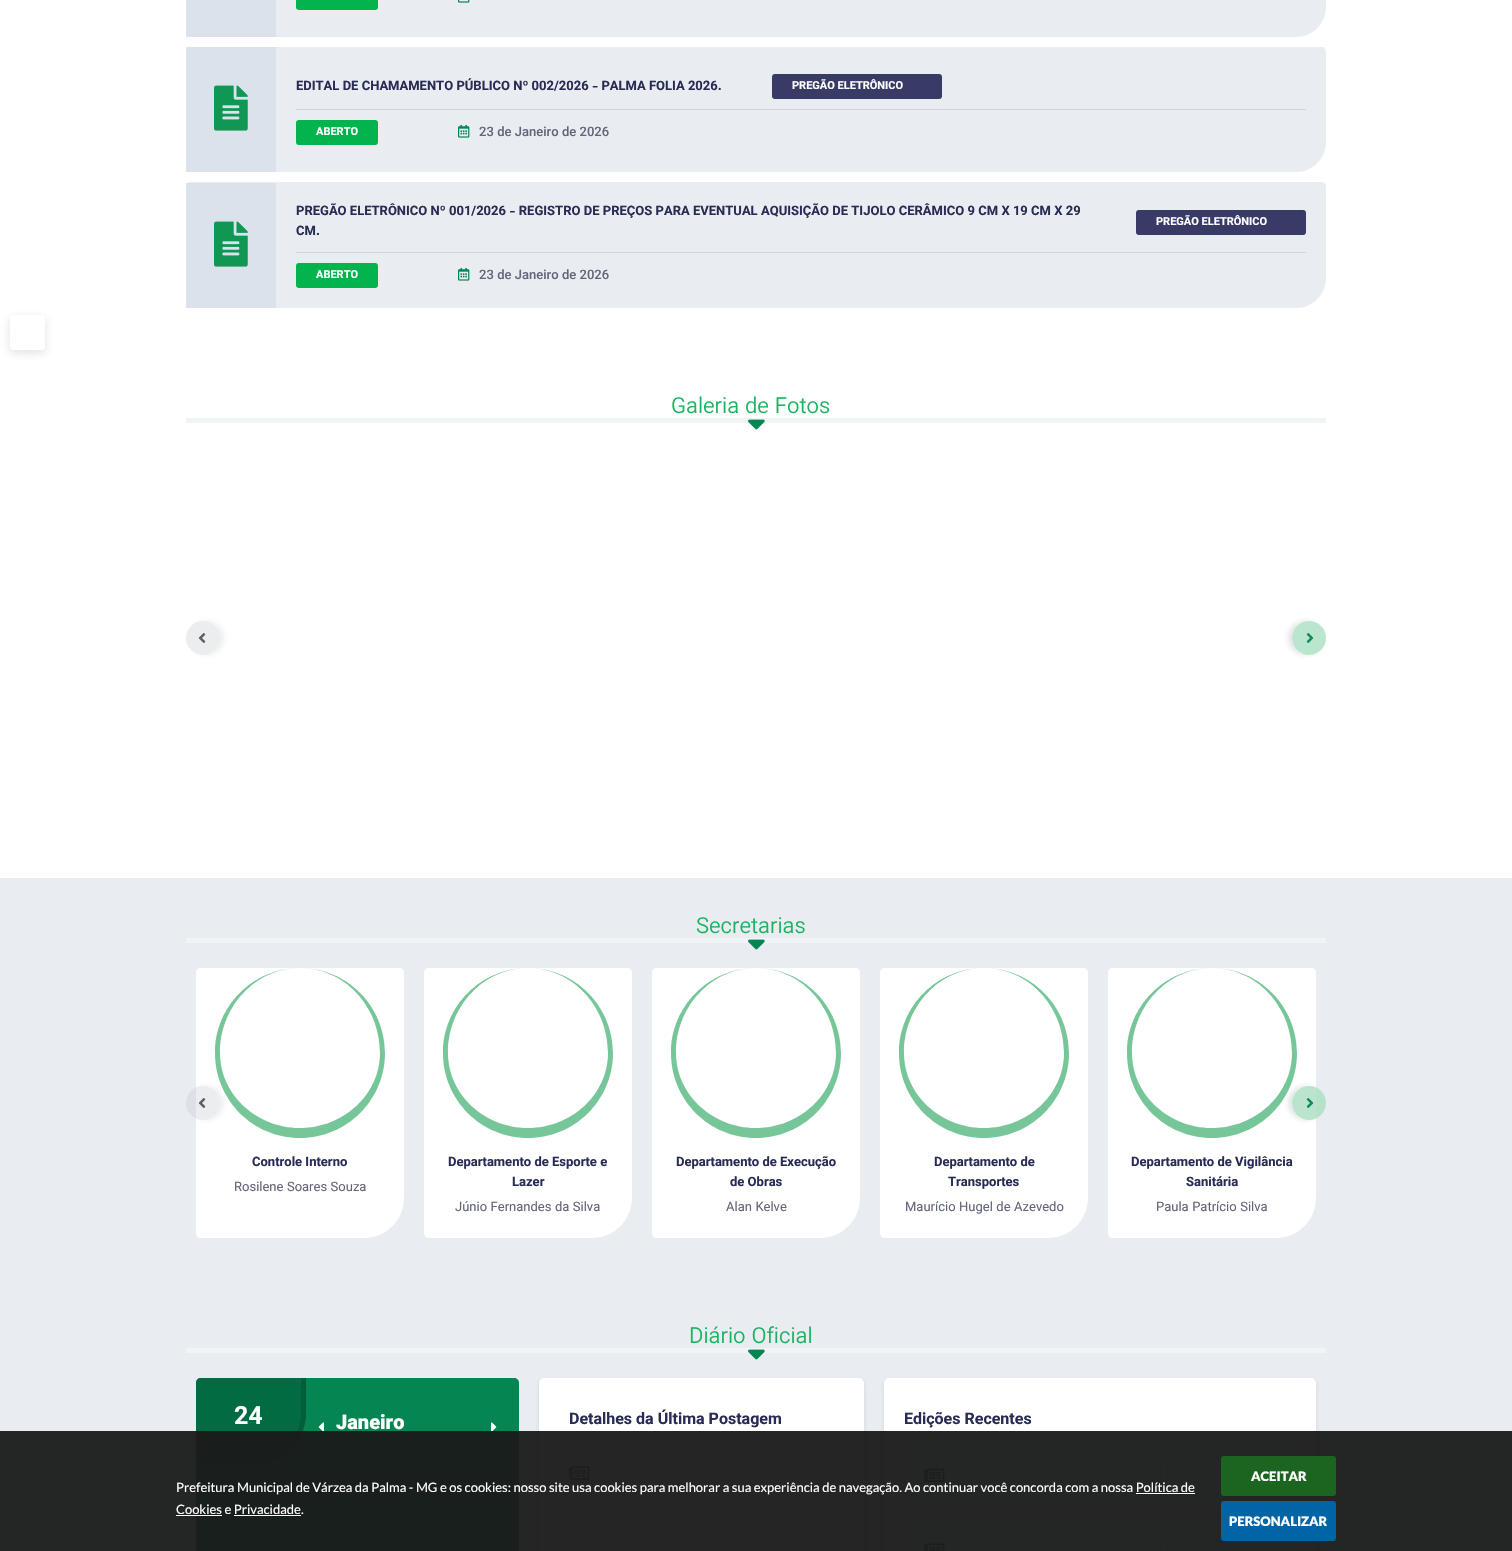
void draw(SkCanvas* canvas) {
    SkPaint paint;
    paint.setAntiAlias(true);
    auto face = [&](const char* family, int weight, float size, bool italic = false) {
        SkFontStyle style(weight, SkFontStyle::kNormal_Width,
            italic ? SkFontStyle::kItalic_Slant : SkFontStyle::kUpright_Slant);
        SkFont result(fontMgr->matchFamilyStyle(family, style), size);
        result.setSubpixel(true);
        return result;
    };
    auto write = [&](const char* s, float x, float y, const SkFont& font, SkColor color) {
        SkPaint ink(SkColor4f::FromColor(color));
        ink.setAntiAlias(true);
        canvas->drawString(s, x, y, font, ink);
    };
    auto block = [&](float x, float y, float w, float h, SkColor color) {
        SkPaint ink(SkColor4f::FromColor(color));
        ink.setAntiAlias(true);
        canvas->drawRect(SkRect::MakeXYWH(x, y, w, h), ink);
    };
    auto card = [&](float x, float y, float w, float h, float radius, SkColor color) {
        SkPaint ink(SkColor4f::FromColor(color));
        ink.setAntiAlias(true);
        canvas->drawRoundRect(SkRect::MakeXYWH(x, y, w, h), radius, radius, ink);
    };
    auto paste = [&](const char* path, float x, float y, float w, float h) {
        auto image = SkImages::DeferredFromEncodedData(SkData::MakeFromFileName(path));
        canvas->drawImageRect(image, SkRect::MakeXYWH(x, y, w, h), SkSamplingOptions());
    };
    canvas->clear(SK_ColorWHITE);
    paint.setColor(SkColorSetRGB(233, 237, 242));
    canvas->drawPath(SkPathBuilder().moveTo(191, -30).lineTo(1321, -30).cubicTo(1324, -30, 1326, -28, 1326, -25).lineTo(1326, 7).cubicTo(1326, 23.5f, 1312.5f, 37, 1296, 37).lineTo(191, 37).cubicTo(188, 37, 186, 35, 186, 32).lineTo(186, -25).cubicTo(186, -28, 188, -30, 191, -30).close().detach(), paint);
    block(186, 0, 90, 37, SkColorSetRGB(219, 226, 235));
    card(296, -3, 82, 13, 3, SkColorSetRGB(3, 179, 78));
    paste("pic1.png", 458, 0, 12, 3);
    canvas->drawPath(SkPathBuilder().moveTo(191, 47).lineTo(1321, 47).cubicTo(1324, 47, 1326, 49, 1326, 52).lineTo(1326, 142).cubicTo(1326, 158.5f, 1312.5f, 172, 1296, 172).lineTo(191, 172).cubicTo(188, 172, 186, 170, 186, 167).lineTo(186, 52).cubicTo(186, 49, 188, 47, 191, 47).close().detach(), paint);
    block(186, 47, 90, 125, SkColorSetRGB(219, 226, 235));
    paste("pic2.png", 214, 85, 34, 46);
    block(296, 109, 1010, 1, SkColorSetRGB(207, 214, 222));
    auto kFont1 = face("Vazirmatn", 700, 13);
    write("EDITAL DE CHAMAMENTO PÚBLICO Nº 002/2026 - PALMA FOLIA 2026.", 296, 90, kFont1, SkColorSetRGB(40, 44, 84));
    card(772, 74, 170, 25, 3, SkColorSetRGB(55, 59, 102));
    auto kFont2 = face("Vazirmatn", 700, 11);
    write("PREGÃO ELETRÔNICO", 792, 89, kFont2, SK_ColorWHITE);
    card(296, 120, 82, 25, 3, SkColorSetRGB(3, 179, 78));
    write("ABERTO", 316, 135, kFont2, SK_ColorWHITE);
    paste("pic3.png", 458, 125, 12, 13);
    auto kFont3 = face("Vazirmatn", 500, 13);
    write("23 de Janeiro de 2026", 479, 136, kFont3, SkColorSetRGB(99, 101, 122));
    canvas->drawPath(SkPathBuilder().moveTo(191, 182).lineTo(1321, 182).cubicTo(1324, 182, 1326, 184, 1326, 187).lineTo(1326, 278).cubicTo(1326, 294.5f, 1312.5f, 308, 1296, 308).lineTo(191, 308).cubicTo(188, 308, 186, 306, 186, 303).lineTo(186, 187).cubicTo(186, 184, 188, 182, 191, 182).close().detach(), paint);
    block(186, 183, 90, 125, SkColorSetRGB(219, 226, 235));
    paste("pic2.png", 214, 221, 34, 46);
    block(296, 252, 1010, 1, SkColorSetRGB(207, 214, 222));
    write("PREGÃO ELETRÔNICO Nº 001/2026 - REGISTRO DE PREÇOS PARA EVENTUAL AQUISIÇÃO DE TIJOLO CERÂMICO 9 CM X 19 CM X 29", 296, 215, kFont1, SkColorSetRGB(40, 44, 84));
    write("CM.", 296, 235, kFont1, SkColorSetRGB(40, 44, 84));
    card(1136, 210, 170, 25, 3, SkColorSetRGB(55, 59, 102));
    write("PREGÃO ELETRÔNICO", 1156, 225, kFont2, SK_ColorWHITE);
    card(296, 263, 82, 25, 3, SkColorSetRGB(3, 179, 78));
    write("ABERTO", 316, 278, kFont2, SK_ColorWHITE);
    paste("pic3.png", 458, 268, 12, 13);
    write("23 de Janeiro de 2026", 479, 279, kFont3, SkColorSetRGB(99, 101, 122));
    auto kFont4 = face("Vazirmatn", 300, 22);
    write("Galeria de Fotos", 671, 413, kFont4, SkColorSetRGB(26, 179, 96));
    block(186, 418, 1140, 5, SkColorSetRGB(241, 244, 247));
    paste("pic4.png", 748, 419, 17, 11);
    canvas->save();
    canvas->clipPath(SkPathBuilder(SkPathFillType::kEvenOdd).moveTo(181, 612).lineTo(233, 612).lineTo(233, 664).lineTo(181, 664).close().moveTo(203, 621).cubicTo(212.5f, 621, 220, 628.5f, 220, 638).cubicTo(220, 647.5f, 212.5f, 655, 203, 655).cubicTo(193.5f, 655, 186, 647.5f, 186, 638).cubicTo(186, 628.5f, 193.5f, 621, 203, 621).close().detach(), true);
    paint.setColor(SkColorSetARGB(38, 134, 139, 147));
    paint.setMaskFilter(SkMaskFilter::MakeBlur(kNormal_SkBlurStyle, 2.5f));
    canvas->drawRoundRect(SkRect::MakeXYWH(190, 621, 34, 34), 17, 17, paint);
    paint.setMaskFilter(nullptr);
    canvas->restore();
    paint.setColor(SkColorSetARGB(128, 218, 220, 223));
    canvas->drawCircle(203, 638, 17, paint);
    paste("pic5.png", 198, 633, 8, 10);
    canvas->save();
    canvas->clipPath(SkPathBuilder(SkPathFillType::kEvenOdd).moveTo(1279, 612).lineTo(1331, 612).lineTo(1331, 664).lineTo(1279, 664).close().moveTo(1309, 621).cubicTo(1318.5f, 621, 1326, 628.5f, 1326, 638).cubicTo(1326, 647.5f, 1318.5f, 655, 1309, 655).cubicTo(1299.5f, 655, 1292, 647.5f, 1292, 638).cubicTo(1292, 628.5f, 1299.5f, 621, 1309, 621).close().detach(), true);
    paint.setColor(SkColorSetARGB(38, 64, 71, 84));
    paint.setMaskFilter(SkMaskFilter::MakeBlur(kNormal_SkBlurStyle, 2.5f));
    canvas->drawRoundRect(SkRect::MakeXYWH(1288, 621, 34, 34), 17, 17, paint);
    paint.setMaskFilter(nullptr);
    canvas->restore();
    paint.setColor(SkColorSetARGB(222, 176, 226, 197));
    canvas->drawCircle(1309, 638, 17, paint);
    paste("pic6.png", 1306, 633, 8, 10);
    block(0, 878, 1512, 673, SkColorSetRGB(233, 237, 242));
    write("Secretarias", 696, 933, kFont4, SkColorSetRGB(26, 179, 96));
    block(186, 938, 1140, 5, SkColorSetRGB(241, 244, 247));
    paste("pic7.png", 748, 939, 17, 11);
    paint.setColor(SK_ColorWHITE);
    canvas->drawPath(SkPathBuilder().moveTo(201, 968).lineTo(399, 968).cubicTo(402, 968, 404, 970, 404, 973).lineTo(404, 1198).cubicTo(404, 1220, 386, 1238, 364, 1238).lineTo(201, 1238).cubicTo(198, 1238, 196, 1236, 196, 1233).lineTo(196, 973).cubicTo(196, 970, 198, 968, 201, 968).close().detach(), paint);
    paint.setColor(SkColorSetRGB(119, 198, 153));
    canvas->drawPath(SkPathBuilder(SkPathFillType::kEvenOdd).moveTo(300, 968).cubicTo(347, 968, 385, 1006, 385, 1053).cubicTo(385, 1100, 347, 1138, 300, 1138).cubicTo(253, 1138, 215, 1100, 215, 1053).cubicTo(215, 1006, 253, 968, 300, 968).close().moveTo(300, 968).cubicTo(344, 968, 380, 1006, 380, 1053).cubicTo(380, 1094, 344, 1128, 300, 1128).cubicTo(256, 1128, 220, 1094, 220, 1053).cubicTo(220, 1006, 256, 968, 300, 968).close().detach(), paint);
    canvas->save();
    canvas->clipPath(SkPathBuilder(SkPathFillType::kEvenOdd).moveTo(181, 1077).lineTo(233, 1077).lineTo(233, 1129).lineTo(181, 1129).close().moveTo(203, 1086).cubicTo(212.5f, 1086, 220, 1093.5f, 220, 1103).cubicTo(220, 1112.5f, 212.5f, 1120, 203, 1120).cubicTo(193.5f, 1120, 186, 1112.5f, 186, 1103).cubicTo(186, 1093.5f, 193.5f, 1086, 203, 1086).close().detach(), true);
    paint.setColor(SkColorSetARGB(23, 54, 61, 75));
    paint.setMaskFilter(SkMaskFilter::MakeBlur(kNormal_SkBlurStyle, 2.5f));
    canvas->drawRoundRect(SkRect::MakeXYWH(190, 1086, 34, 34), 17, 17, paint);
    paint.setMaskFilter(nullptr);
    canvas->restore();
    paint.setColor(SkColorSetARGB(77, 193, 197, 201));
    canvas->drawCircle(203, 1103, 17, paint);
    paste("pic8.png", 198, 1098, 8, 10);
    paint.setColor(SK_ColorWHITE);
    canvas->drawPath(SkPathBuilder().moveTo(1113, 968).lineTo(1311, 968).cubicTo(1314, 968, 1316, 970, 1316, 973).lineTo(1316, 1198).cubicTo(1316, 1220, 1298, 1238, 1276, 1238).lineTo(1113, 1238).cubicTo(1110, 1238, 1108, 1236, 1108, 1233).lineTo(1108, 973).cubicTo(1108, 970, 1110, 968, 1113, 968).close().detach(), paint);
    paint.setColor(SkColorSetRGB(119, 198, 153));
    canvas->drawPath(SkPathBuilder(SkPathFillType::kEvenOdd).moveTo(1212, 968).cubicTo(1259, 968, 1297, 1006, 1297, 1053).cubicTo(1297, 1100, 1259, 1138, 1212, 1138).cubicTo(1165, 1138, 1127, 1100, 1127, 1053).cubicTo(1127, 1006, 1165, 968, 1212, 968).close().moveTo(1212, 968).cubicTo(1256, 968, 1292, 1006, 1292, 1053).cubicTo(1292, 1094, 1256, 1128, 1212, 1128).cubicTo(1168, 1128, 1132, 1094, 1132, 1053).cubicTo(1132, 1006, 1168, 968, 1212, 968).close().detach(), paint);
    canvas->save();
    canvas->clipPath(SkPathBuilder(SkPathFillType::kEvenOdd).moveTo(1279, 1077).lineTo(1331, 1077).lineTo(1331, 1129).lineTo(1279, 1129).close().moveTo(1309, 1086).cubicTo(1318.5f, 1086, 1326, 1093.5f, 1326, 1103).cubicTo(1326, 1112.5f, 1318.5f, 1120, 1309, 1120).cubicTo(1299.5f, 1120, 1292, 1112.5f, 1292, 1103).cubicTo(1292, 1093.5f, 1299.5f, 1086, 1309, 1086).close().detach(), true);
    paint.setColor(SkColorSetARGB(36, 54, 61, 75));
    paint.setMaskFilter(SkMaskFilter::MakeBlur(kNormal_SkBlurStyle, 2.5f));
    canvas->drawRoundRect(SkRect::MakeXYWH(1288, 1086, 34, 34), 17, 17, paint);
    paint.setMaskFilter(nullptr);
    canvas->restore();
    paint.setColor(SkColorSetARGB(212, 172, 224, 194));
    canvas->drawCircle(1309, 1103, 17, paint);
    paste("pic9.png", 1306, 1098, 8, 10);
    write("Controle Interno", 252, 1166, kFont1, SkColorSetRGB(40, 44, 84));
    auto kFont5 = face("Vazirmatn", 400, 13);
    write("Rosilene Soares Souza", 234, 1191, kFont5, SkColorSetRGB(99, 101, 122));
    paint.setColor(SK_ColorWHITE);
    canvas->drawPath(SkPathBuilder().moveTo(429, 968).lineTo(627, 968).cubicTo(630, 968, 632, 970, 632, 973).lineTo(632, 1198).cubicTo(632, 1220, 614, 1238, 592, 1238).lineTo(429, 1238).cubicTo(426, 1238, 424, 1236, 424, 1233).lineTo(424, 973).cubicTo(424, 970, 426, 968, 429, 968).close().detach(), paint);
    paint.setColor(SkColorSetRGB(119, 198, 153));
    canvas->drawPath(SkPathBuilder(SkPathFillType::kEvenOdd).moveTo(528, 968).cubicTo(575, 968, 613, 1006, 613, 1053).cubicTo(613, 1100, 575, 1138, 528, 1138).cubicTo(481, 1138, 443, 1100, 443, 1053).cubicTo(443, 1006, 481, 968, 528, 968).close().moveTo(528, 968).cubicTo(572, 968, 608, 1006, 608, 1053).cubicTo(608, 1094, 572, 1128, 528, 1128).cubicTo(484, 1128, 448, 1094, 448, 1053).cubicTo(448, 1006, 484, 968, 528, 968).close().detach(), paint);
    write("Departamento de Esporte e", 448, 1166, kFont1, SkColorSetRGB(40, 44, 84));
    write("Lazer", 512, 1186, kFont1, SkColorSetRGB(40, 44, 84));
    write("Júnio Fernandes da Silva", 455, 1211, kFont5, SkColorSetRGB(99, 101, 122));
    paint.setColor(SK_ColorWHITE);
    canvas->drawPath(SkPathBuilder().moveTo(657, 968).lineTo(855, 968).cubicTo(858, 968, 860, 970, 860, 973).lineTo(860, 1198).cubicTo(860, 1220, 842, 1238, 820, 1238).lineTo(657, 1238).cubicTo(654, 1238, 652, 1236, 652, 1233).lineTo(652, 973).cubicTo(652, 970, 654, 968, 657, 968).close().detach(), paint);
    paint.setColor(SkColorSetRGB(119, 198, 153));
    canvas->drawPath(SkPathBuilder(SkPathFillType::kEvenOdd).moveTo(756, 968).cubicTo(803, 968, 841, 1006, 841, 1053).cubicTo(841, 1100, 803, 1138, 756, 1138).cubicTo(709, 1138, 671, 1100, 671, 1053).cubicTo(671, 1006, 709, 968, 756, 968).close().moveTo(756, 968).cubicTo(800, 968, 836, 1006, 836, 1053).cubicTo(836, 1094, 800, 1128, 756, 1128).cubicTo(712, 1128, 676, 1094, 676, 1053).cubicTo(676, 1006, 712, 968, 756, 968).close().detach(), paint);
    write("Departamento de Execução", 676, 1166, kFont1, SkColorSetRGB(40, 44, 84));
    write("de Obras", 730, 1186, kFont1, SkColorSetRGB(40, 44, 84));
    write("Alan Kelve", 726, 1211, kFont5, SkColorSetRGB(99, 101, 122));
    paint.setColor(SK_ColorWHITE);
    canvas->drawPath(SkPathBuilder().moveTo(885, 968).lineTo(1083, 968).cubicTo(1086, 968, 1088, 970, 1088, 973).lineTo(1088, 1198).cubicTo(1088, 1220, 1070, 1238, 1048, 1238).lineTo(885, 1238).cubicTo(882, 1238, 880, 1236, 880, 1233).lineTo(880, 973).cubicTo(880, 970, 882, 968, 885, 968).close().detach(), paint);
    paint.setColor(SkColorSetRGB(119, 198, 153));
    canvas->drawPath(SkPathBuilder(SkPathFillType::kEvenOdd).moveTo(984, 968).cubicTo(1031, 968, 1069, 1006, 1069, 1053).cubicTo(1069, 1100, 1031, 1138, 984, 1138).cubicTo(937, 1138, 899, 1100, 899, 1053).cubicTo(899, 1006, 937, 968, 984, 968).close().moveTo(984, 968).cubicTo(1028, 968, 1064, 1006, 1064, 1053).cubicTo(1064, 1094, 1028, 1128, 984, 1128).cubicTo(940, 1128, 904, 1094, 904, 1053).cubicTo(904, 1006, 940, 968, 984, 968).close().detach(), paint);
    write("Departamento de", 934, 1166, kFont1, SkColorSetRGB(40, 44, 84));
    write("Transportes", 948, 1186, kFont1, SkColorSetRGB(40, 44, 84));
    write("Maurício Hugel de Azevedo", 905, 1211, kFont5, SkColorSetRGB(99, 101, 122));
    write("Departamento de Vigilância", 1131, 1166, kFont1, SkColorSetRGB(40, 44, 84));
    write("Sanitária", 1186, 1186, kFont1, SkColorSetRGB(40, 44, 84));
    write("Paula Patrício Silva", 1156, 1211, kFont5, SkColorSetRGB(99, 101, 122));
    write("Diário Oficial", 689, 1343, kFont4, SkColorSetRGB(26, 179, 96));
    block(186, 1348, 1140, 5, SkColorSetRGB(241, 244, 247));
    paste("pic7.png", 748, 1349, 17, 11);
    paint.setColor(SkColorSetRGB(5, 133, 82));
    canvas->drawPath(SkPathBuilder().moveTo(201, 1378).lineTo(514, 1378).cubicTo(517, 1378, 519, 1380, 519, 1383).lineTo(519, 1551).cubicTo(519, 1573, 501, 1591, 479, 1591).lineTo(201, 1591).cubicTo(198, 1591, 196, 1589, 196, 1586).lineTo(196, 1383).cubicTo(196, 1380, 198, 1378, 201, 1378).close().detach(), paint);
    paint.setColor(SkColorSetRGB(2, 107, 66));
    canvas->drawPath(SkPathBuilder().moveTo(201, 1378).lineTo(306, 1378).lineTo(306, 1413).cubicTo(306, 1440.5f, 283.5f, 1463, 256, 1463).lineTo(196, 1463).lineTo(196, 1383).cubicTo(196, 1380, 198, 1378, 201, 1378).close().detach(), paint);
    paint.setColor(SkColorSetRGB(1, 94, 58));
    canvas->drawPath(SkPathBuilder(SkPathFillType::kEvenOdd).moveTo(201, 1378).lineTo(306, 1378).lineTo(306, 1413).cubicTo(306, 1441, 284, 1463, 256, 1463).lineTo(196, 1463).lineTo(196, 1383).cubicTo(196, 1380, 198, 1378, 201, 1378).close().moveTo(201, 1378).lineTo(301, 1378).lineTo(301, 1413).cubicTo(301, 1438, 281, 1458, 256, 1458).lineTo(196, 1458).lineTo(196, 1383).cubicTo(196, 1380, 198, 1378, 201, 1378).close().detach(), paint);
    auto kFont6 = face("Vazirmatn", 700, 25);
    write("24", 234, 1424, kFont6, SK_ColorWHITE);
    auto kFont7 = face("Vazirmatn", 900, 20);
    write("Janeiro", 336, 1429, kFont7, SK_ColorWHITE);
    paste("pic10.png", 318, 1422, 6, 10);
    paste("pic11.png", 491, 1422, 6, 10);
    paint.setColor(SkColorSetARGB(33, 31, 43, 65));
    paint.setMaskFilter(SkMaskFilter::MakeBlur(kNormal_SkBlurStyle, 2));
    canvas->drawRoundRect(SkRect::MakeXYWH(539, 1380, 325, 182), 5, 5, paint);
    paint.setMaskFilter(nullptr);
    card(539, 1378, 325, 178, 5, SK_ColorWHITE);
    block(569, 1443, 265, 1, SkColorSetRGB(198, 214, 236));
    auto kFont8 = face("Vazirmatn", 700, 16);
    write("Detalhes da Última Postagem", 569, 1424, kFont8, SkColorSetRGB(40, 44, 84));
    paste("pic12.png", 569, 1466, 21, 14);
    paint.setMaskFilter(SkMaskFilter::MakeBlur(kNormal_SkBlurStyle, 2));
    canvas->drawRoundRect(SkRect::MakeXYWH(884, 1380, 432, 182), 5, 5, paint);
    paint.setMaskFilter(nullptr);
    card(884, 1378, 432, 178, 5, SK_ColorWHITE);
    write("Edições Recentes", 904, 1424, kFont8, SkColorSetRGB(40, 44, 84));
    card(904, 1443, 392, 65, 5, SkColorSetRGB(233, 237, 242));
    paste("pic13.png", 924, 1468, 21, 14);
    block(1160, 1463, 1, 25, SkColorSetRGB(198, 214, 236));
    card(904, 1518, 392, 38, 5, SkColorSetRGB(233, 237, 242));
    paste("pic14.png", 924, 1543, 21, 8);
    block(1160, 1538, 1, 13, SkColorSetRGB(198, 214, 236));
    canvas->save();
    canvas->clipPath(SkPathBuilder(SkPathFillType::kEvenOdd).moveTo(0, 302).lineTo(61, 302).lineTo(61, 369).lineTo(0, 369).close().moveTo(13, 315).lineTo(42, 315).cubicTo(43.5f, 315, 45, 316.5f, 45, 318).lineTo(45, 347).cubicTo(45, 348.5f, 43.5f, 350, 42, 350).lineTo(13, 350).cubicTo(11.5f, 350, 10, 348.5f, 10, 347).lineTo(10, 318).cubicTo(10, 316.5f, 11.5f, 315, 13, 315).close().detach(), true);
    paint.setColor(SkColorSetARGB(38, 40, 44, 84));
    paint.setMaskFilter(SkMaskFilter::MakeBlur(kNormal_SkBlurStyle, 5));
    canvas->drawRoundRect(SkRect::MakeXYWH(10, 318, 35, 35), 3, 3, paint);
    paint.setMaskFilter(nullptr);
    canvas->restore();
    block(0, 1431, 1512, 120, SkColorSetARGB(242, 25, 25, 25));
    auto kFont9 = face("Lato", 400, 13);
    write("Prefeitura Municipal de Várzea da Palma - MG e os cookies: nosso site usa cookies para melhorar a sua experiência de navegação. Ao continuar você concorda com a nossa Política de", 176, 1492, kFont9, SK_ColorWHITE);
    write("Cookies e Privacidade.", 176, 1514, kFont9, SK_ColorWHITE);
    block(1136, 1493, 59, 1, SK_ColorWHITE);
    block(176, 1515, 46, 1, SK_ColorWHITE);
    block(234, 1515, 67, 1, SK_ColorWHITE);
    card(1221, 1456, 115, 40, 3, SkColorSetRGB(27, 101, 32));
    auto kFont10 = face("Lato", 900, 13);
    write("ACEITAR", 1251, 1481, kFont10, SK_ColorWHITE);
    card(1221, 1501, 115, 40, 3, SkColorSetRGB(1, 100, 164));
    write("PERSONALIZAR", 1229, 1526, kFont10, SK_ColorWHITE);
}
